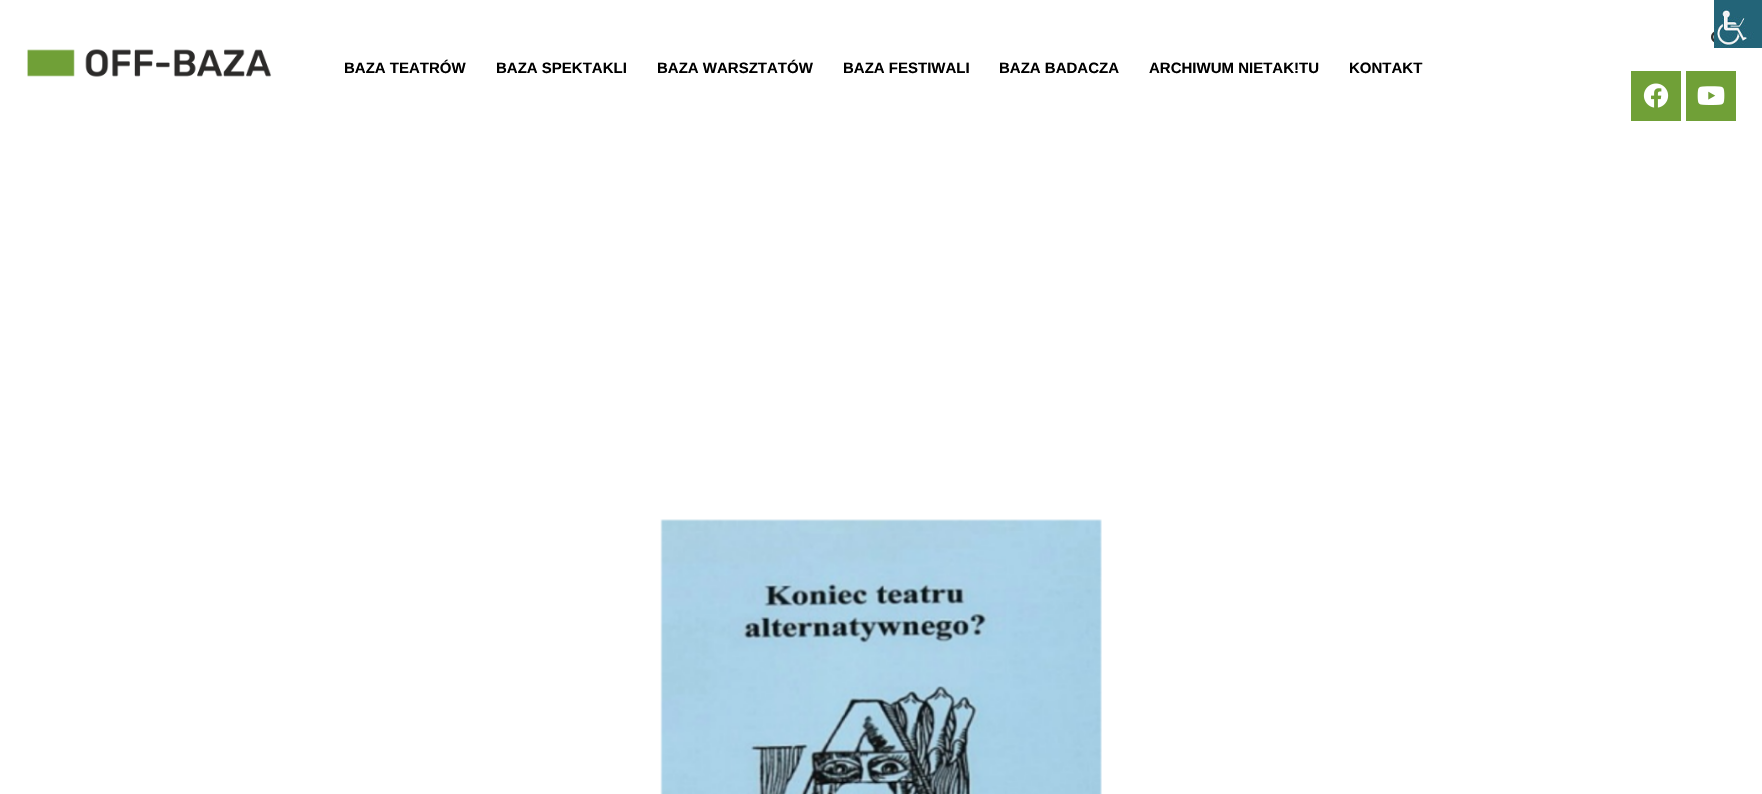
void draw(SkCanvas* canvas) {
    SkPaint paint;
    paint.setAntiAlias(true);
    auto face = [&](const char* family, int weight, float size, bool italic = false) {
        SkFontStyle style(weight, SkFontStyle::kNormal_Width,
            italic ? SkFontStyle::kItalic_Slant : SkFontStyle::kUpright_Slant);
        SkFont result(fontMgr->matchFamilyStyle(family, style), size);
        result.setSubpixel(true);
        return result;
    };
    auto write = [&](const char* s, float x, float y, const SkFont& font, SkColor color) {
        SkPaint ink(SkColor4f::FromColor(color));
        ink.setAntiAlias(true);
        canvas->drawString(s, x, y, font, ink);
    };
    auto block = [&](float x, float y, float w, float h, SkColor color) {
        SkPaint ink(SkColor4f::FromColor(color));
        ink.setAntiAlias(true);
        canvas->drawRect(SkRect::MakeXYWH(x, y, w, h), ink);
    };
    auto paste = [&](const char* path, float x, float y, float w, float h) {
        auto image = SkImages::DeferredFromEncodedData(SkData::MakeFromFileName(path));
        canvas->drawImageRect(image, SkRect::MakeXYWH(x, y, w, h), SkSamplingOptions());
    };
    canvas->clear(SK_ColorWHITE);
    paste("pic1.png", 1714, 0, 48, 48);
    paste("pic2.png", 27, 49, 245, 28);
    auto kFont1 = face("Liberation Sans", 700, 15);
    write("BAZA TEATRÓW", 344, 73, kFont1, SK_ColorBLACK);
    write("BAZA SPEKTAKLI", 496, 73, kFont1, SK_ColorBLACK);
    write("BAZA WARSZTATÓW", 657, 73, kFont1, SK_ColorBLACK);
    write("BAZA FESTIWALI", 843, 73, kFont1, SK_ColorBLACK);
    write("BAZA BADACZA", 999, 73, kFont1, SK_ColorBLACK);
    write("ARCHIWUM NIETAK!TU", 1149, 73, kFont1, SK_ColorBLACK);
    write("KONTAKT", 1349, 73, kFont1, SK_ColorBLACK);
    paste("pic3.png", 1711, 31, 3, 12);
    block(1631, 71, 50, 50, SkColorSetRGB(112, 160, 55));
    paste("pic4.png", 1643, 83, 26, 25);
    block(1686, 71, 50, 50, SkColorSetRGB(112, 160, 55));
    paste("pic5.png", 1697, 86, 28, 19);
    paste("pic6.png", 660, 519, 442, 275);
}
